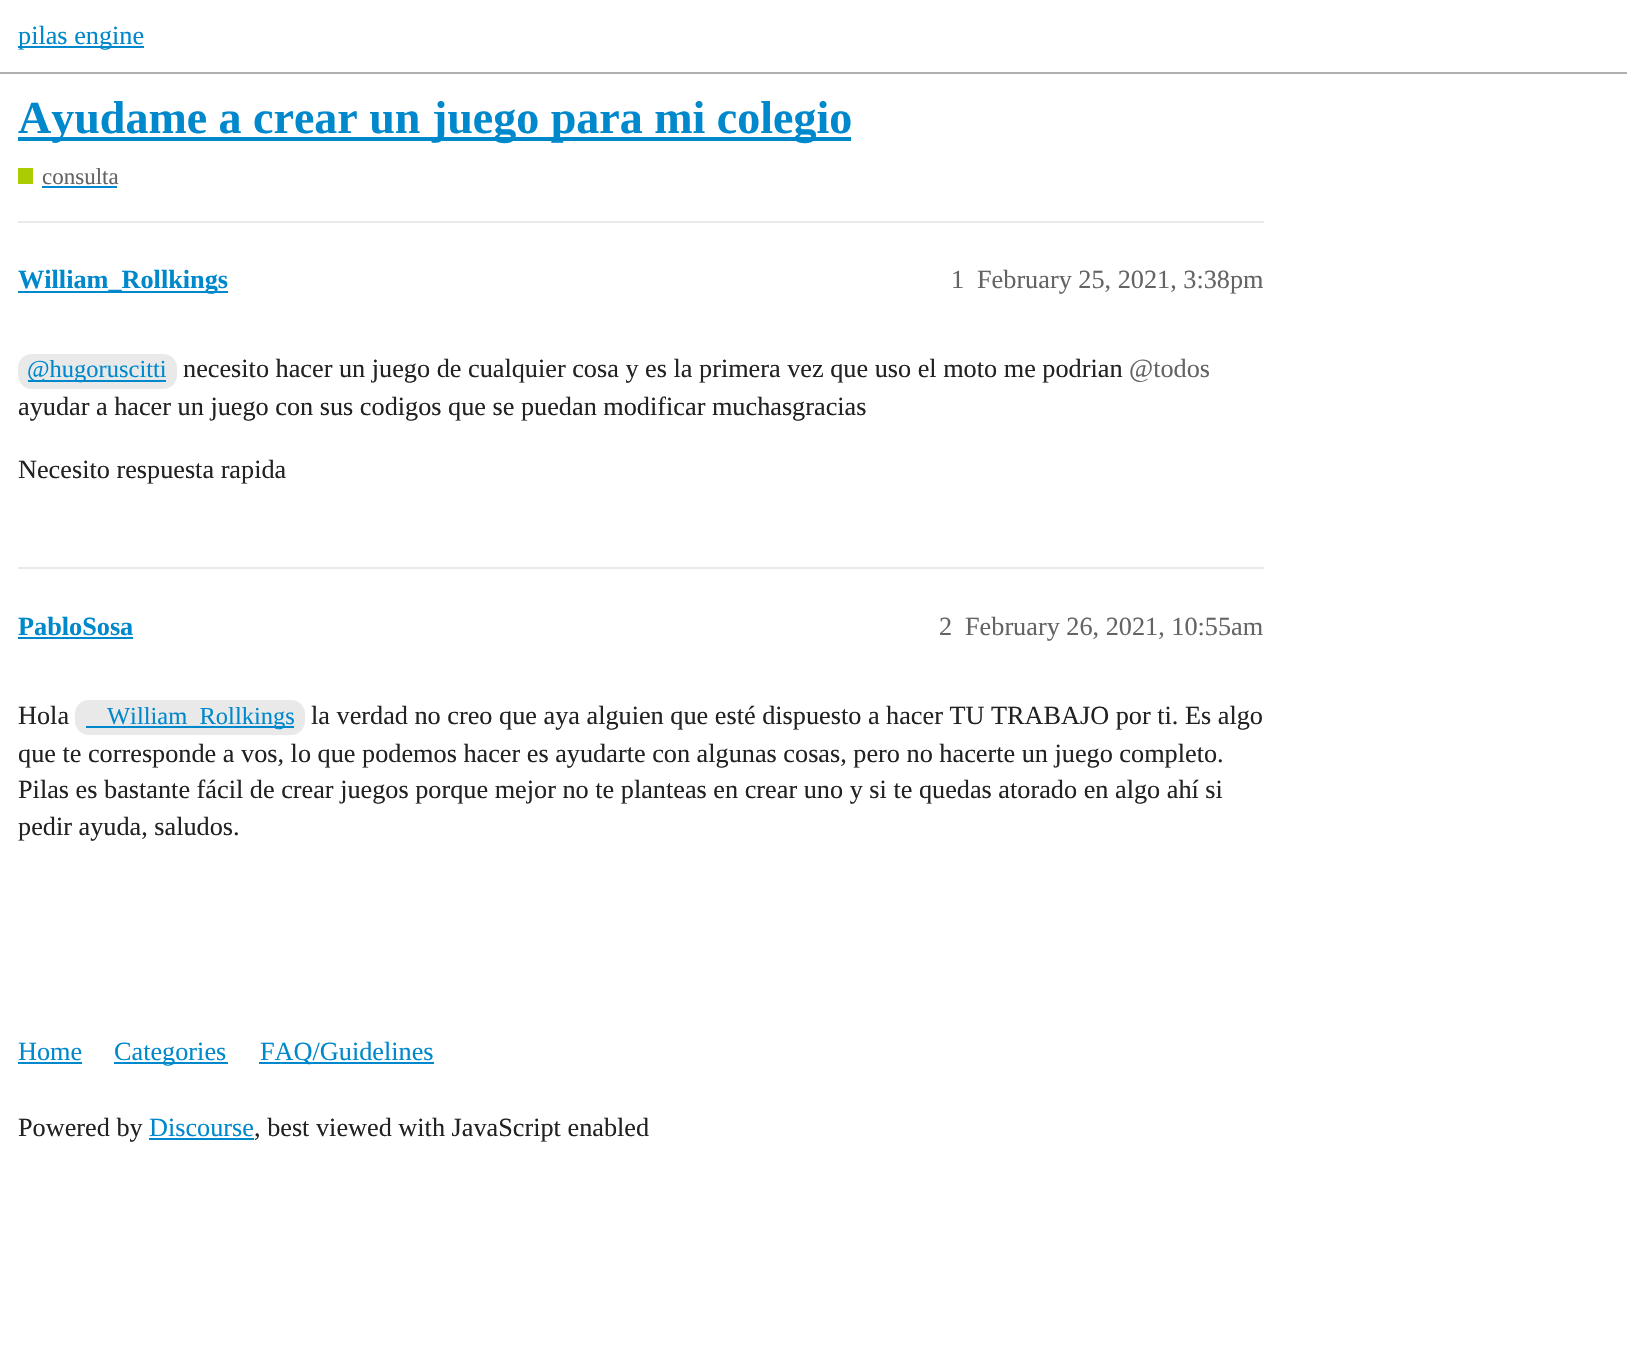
void draw(SkCanvas* canvas) {
    SkPaint paint;
    paint.setAntiAlias(true);
    auto face = [&](const char* family, int weight, float size, bool italic = false) {
        SkFontStyle style(weight, SkFontStyle::kNormal_Width,
            italic ? SkFontStyle::kItalic_Slant : SkFontStyle::kUpright_Slant);
        SkFont result(fontMgr->matchFamilyStyle(family, style), size);
        result.setSubpixel(true);
        return result;
    };
    auto write = [&](const char* s, float x, float y, const SkFont& font, SkColor color) {
        SkPaint ink(SkColor4f::FromColor(color));
        ink.setAntiAlias(true);
        canvas->drawString(s, x, y, font, ink);
    };
    auto block = [&](float x, float y, float w, float h, SkColor color) {
        SkPaint ink(SkColor4f::FromColor(color));
        ink.setAntiAlias(true);
        canvas->drawRect(SkRect::MakeXYWH(x, y, w, h), ink);
    };
    auto card = [&](float x, float y, float w, float h, float radius, SkColor color) {
        SkPaint ink(SkColor4f::FromColor(color));
        ink.setAntiAlias(true);
        canvas->drawRoundRect(SkRect::MakeXYWH(x, y, w, h), radius, radius, ink);
    };
    canvas->clear(SK_ColorWHITE);
    block(0, 72, 1627, 2, SkColorSetRGB(175, 175, 175));
    block(18, 46, 126, 2, SkColorSetRGB(0, 136, 204));
    auto kFont1 = face("Liberation Serif", 400, 26.25f);
    write("pilas engine", 18, 44, kFont1, SkColorSetRGB(0, 136, 204));
    block(18, 137, 833, 4, SkColorSetRGB(0, 136, 204));
    auto kFont2 = face("Liberation Serif", 700, 46);
    write("Ayudame a crear un juego para mi colegio", 18, 133, kFont2, SkColorSetRGB(0, 136, 204));
    block(18, 168, 15, 16, SkColorSetRGB(171, 204, 0));
    auto kFont3 = face("Liberation Serif", 400, 23);
    write("consulta", 42, 184, kFont3, SkColorSetRGB(100, 100, 100));
    block(42, 186, 75, 2, SkColorSetRGB(0, 136, 204));
    block(18, 221, 1246, 2, SkColorSetRGB(233, 233, 233));
    block(18, 291, 210, 2, SkColorSetRGB(0, 136, 204));
    auto kFont4 = face("Liberation Serif", 700, 26.25f);
    write("William_Rollkings", 18, 288, kFont4, SkColorSetRGB(0, 136, 204));
    write("1", 951, 288, kFont1, SkColorSetRGB(100, 100, 100));
    write("February 25, 2021, 3:38pm", 977, 288, kFont1, SkColorSetRGB(100, 100, 100));
    card(18, 354, 159, 35, 14, SkColorSetRGB(233, 233, 233));
    block(28, 380, 138, 2, SkColorSetRGB(0, 136, 204));
    auto kFont5 = face("Liberation Serif", 400, 24.5f);
    write("@hugoruscitti", 27, 377, kFont5, SkColorSetRGB(0, 136, 204));
    write("necesito hacer un juego de cualquier cosa y es la primera vez que uso el moto me podrian", 183, 377, kFont1, SkColorSetRGB(34, 34, 34));
    write("@todos", 1129, 377, kFont1, SkColorSetRGB(100, 100, 100));
    write("ayudar a hacer un juego con sus codigos que se puedan modificar muchasgracias", 18, 415, kFont1, SkColorSetRGB(34, 34, 34));
    write("Necesito respuesta rapida", 18, 478, kFont1, SkColorSetRGB(34, 34, 34));
    block(18, 567, 1246, 2, SkColorSetRGB(233, 233, 233));
    write("PabloSosa", 18, 635, kFont4, SkColorSetRGB(0, 136, 204));
    block(18, 637, 115, 2, SkColorSetRGB(0, 136, 204));
    write("2", 939, 635, kFont1, SkColorSetRGB(100, 100, 100));
    write("February 26, 2021, 10:55am", 965, 635, kFont1, SkColorSetRGB(100, 100, 100));
    write("Hola", 18, 724, kFont1, SkColorSetRGB(34, 34, 34));
    card(75, 700, 230, 35, 14, SkColorSetRGB(233, 233, 233));
    block(86, 726, 208, 2, SkColorSetRGB(0, 136, 204));
    write("William_Rollkings", 107, 724, kFont5, SkColorSetRGB(0, 136, 204));
    write("la verdad no creo que aya alguien que esté dispuesto a hacer TU TRABAJO por ti. Es algo", 311, 724, kFont1, SkColorSetRGB(34, 34, 34));
    write("que te corresponde a vos, lo que podemos hacer es ayudarte con algunas cosas, pero no hacerte un juego completo.", 18, 762, kFont1, SkColorSetRGB(34, 34, 34));
    write("Pilas es bastante fácil de crear juegos porque mejor no te planteas en crear uno y si te quedas atorado en algo ahí si", 18, 798, kFont1, SkColorSetRGB(34, 34, 34));
    write("pedir ayuda, saludos.", 18, 835, kFont1, SkColorSetRGB(34, 34, 34));
    write("Home", 18, 1060, kFont1, SkColorSetRGB(0, 136, 204));
    block(18, 1062, 64, 2, SkColorSetRGB(0, 136, 204));
    block(114, 1062, 114, 2, SkColorSetRGB(0, 136, 204));
    write("Categories", 114, 1060, kFont1, SkColorSetRGB(0, 136, 204));
    block(259, 1062, 175, 2, SkColorSetRGB(0, 136, 204));
    write("FAQ/Guidelines", 260, 1060, kFont1, SkColorSetRGB(0, 136, 204));
    write("Powered by", 18, 1136, kFont1, SkColorSetRGB(34, 34, 34));
    write("Discourse", 149, 1136, kFont1, SkColorSetRGB(0, 136, 204));
    block(149, 1138, 105, 2, SkColorSetRGB(0, 136, 204));
    write(", best viewed with JavaScript enabled", 254, 1136, kFont1, SkColorSetRGB(34, 34, 34));
}
